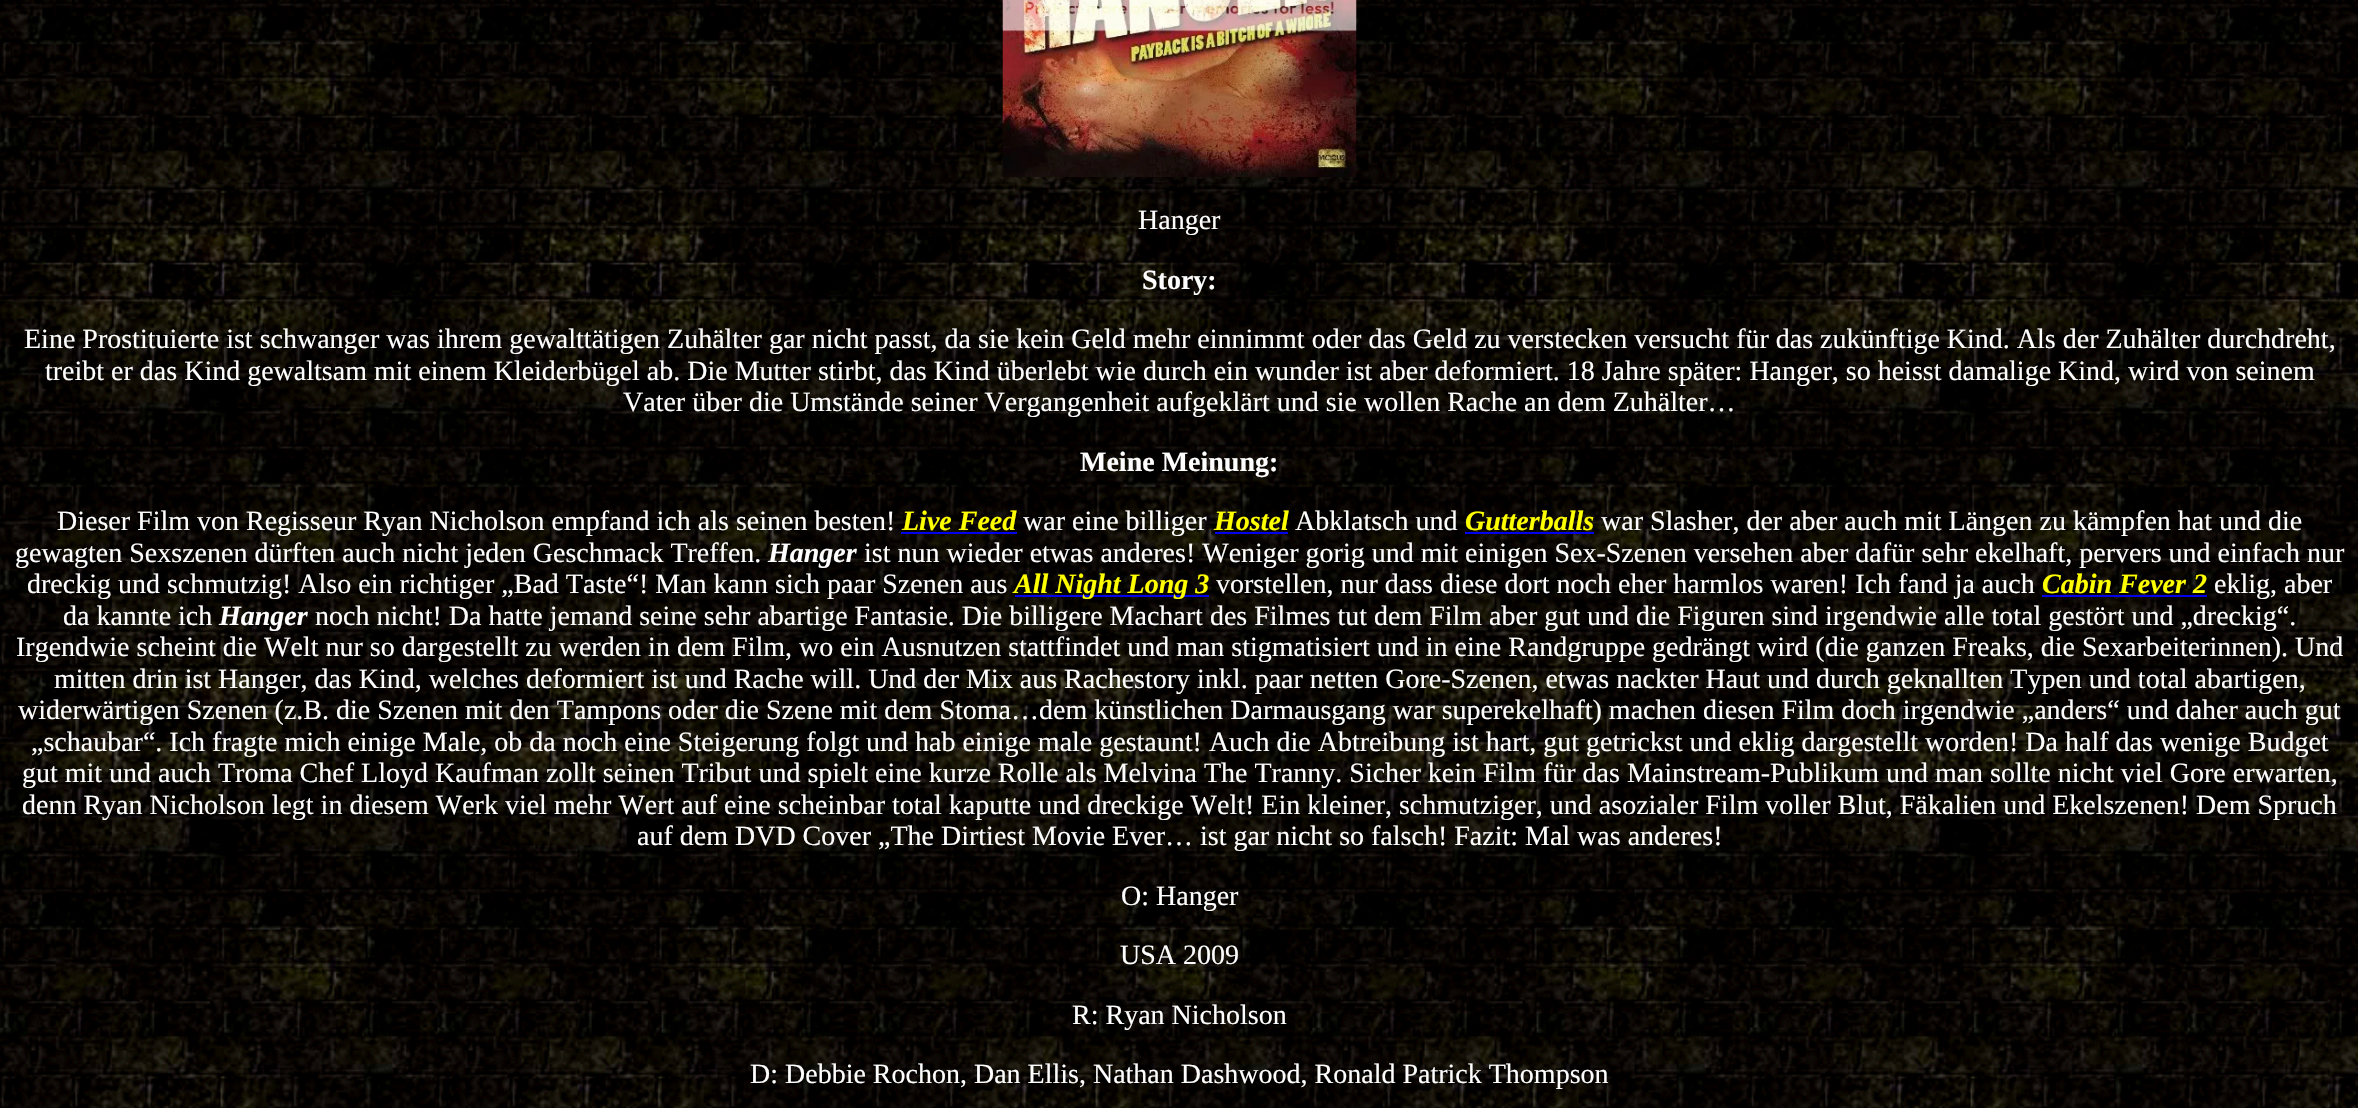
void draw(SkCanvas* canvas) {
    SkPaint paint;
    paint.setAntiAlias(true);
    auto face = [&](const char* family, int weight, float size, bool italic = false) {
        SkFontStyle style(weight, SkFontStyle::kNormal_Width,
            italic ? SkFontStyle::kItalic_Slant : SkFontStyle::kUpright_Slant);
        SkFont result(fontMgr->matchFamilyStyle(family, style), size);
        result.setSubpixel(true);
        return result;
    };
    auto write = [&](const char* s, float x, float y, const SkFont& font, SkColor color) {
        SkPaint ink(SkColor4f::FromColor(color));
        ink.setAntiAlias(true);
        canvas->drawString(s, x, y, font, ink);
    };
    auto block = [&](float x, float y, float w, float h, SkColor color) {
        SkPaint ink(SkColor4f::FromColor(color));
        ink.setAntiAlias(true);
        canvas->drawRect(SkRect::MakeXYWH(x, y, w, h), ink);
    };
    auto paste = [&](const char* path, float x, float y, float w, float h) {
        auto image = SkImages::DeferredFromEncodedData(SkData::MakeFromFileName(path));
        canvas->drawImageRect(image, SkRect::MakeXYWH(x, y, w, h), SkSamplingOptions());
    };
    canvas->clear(SK_ColorWHITE);
    paste("pic1.png", 0, 0, 2358, 1108);
    paste("pic2.png", 1002, 0, 355, 177);
    auto kFont1 = face("Liberation Serif", 400, 28);
    write("Hanger", 1138, 229, kFont1, SK_ColorWHITE);
    auto kFont2 = face("Liberation Serif", 700, 28);
    write("Story:", 1142, 289, kFont2, SK_ColorWHITE);
    write("Eine Prostituierte ist schwanger was ihrem gewalttätigen Zuhälter gar nicht passt, da sie kein Geld mehr einnimmt oder das Geld zu verstecken versucht für das zukünftige Kind. Als der Zuhälter durchdreht,", 24, 348, kFont1, SK_ColorWHITE);
    write("treibt er das Kind gewaltsam mit einem Kleiderbügel ab. Die Mutter stirbt, das Kind überlebt wie durch ein wunder ist aber deformiert. 18 Jahre später: Hanger, so heisst damalige Kind, wird von seinem", 45, 380, kFont1, SK_ColorWHITE);
    write("Vater über die Umstände seiner Vergangenheit aufgeklärt und sie wollen Rache an dem Zuhälter…", 623, 411, kFont1, SK_ColorWHITE);
    write("Meine Meinung:", 1080, 471, kFont2, SK_ColorWHITE);
    write("Dieser Film von Regisseur Ryan Nicholson empfand ich als seinen besten!", 57, 530, kFont1, SK_ColorWHITE);
    auto kFont3 = face("Liberation Serif", 700, 28, true);
    write("Live Feed", 902, 530, kFont3, SkColorSetRGB(255, 255, 0));
    block(901, 532, 116, 2, SkColorSetRGB(0, 0, 238));
    write("war eine billiger", 1023, 530, kFont1, SK_ColorWHITE);
    write("Hostel", 1214, 530, kFont3, SkColorSetRGB(255, 255, 0));
    block(1215, 532, 73, 2, SkColorSetRGB(0, 0, 238));
    write("Abklatsch und", 1295, 530, kFont1, SK_ColorWHITE);
    write("Gutterballs", 1465, 530, kFont3, SkColorSetRGB(255, 255, 0));
    block(1465, 532, 129, 2, SkColorSetRGB(0, 0, 238));
    write("war Slasher, der aber auch mit Längen zu kämpfen hat und die", 1601, 530, kFont1, SK_ColorWHITE);
    write("gewagten Sexszenen dürften auch nicht jeden Geschmack Treffen.", 15, 562, kFont1, SK_ColorWHITE);
    write("Hanger", 768, 562, kFont3, SK_ColorWHITE);
    write("ist nun wieder etwas anderes! Weniger gorig und mit einigen Sex-Szenen versehen aber dafür sehr ekelhaft, pervers und einfach nur", 864, 562, kFont1, SK_ColorWHITE);
    write("dreckig und schmutzig! Also ein richtiger „Bad Taste“! Man kann sich paar Szenen aus", 27, 593, kFont1, SK_ColorWHITE);
    block(1015, 595, 194, 2, SkColorSetRGB(0, 0, 238));
    write("All Night Long 3", 1014, 593, kFont3, SkColorSetRGB(255, 255, 0));
    write("vorstellen, nur dass diese dort noch eher harmlos waren! Ich fand ja auch", 1216, 593, kFont1, SK_ColorWHITE);
    write("Cabin Fever 2", 2042, 593, kFont3, SkColorSetRGB(255, 255, 0));
    block(2042, 595, 165, 2, SkColorSetRGB(0, 0, 238));
    write("eklig, aber", 2214, 593, kFont1, SK_ColorWHITE);
    write("da kannte ich", 63, 625, kFont1, SK_ColorWHITE);
    write("Hanger", 219, 625, kFont3, SK_ColorWHITE);
    write("noch nicht! Da hatte jemand seine sehr abartige Fantasie. Die billigere Machart des Filmes tut dem Film aber gut und die Figuren sind irgendwie alle total gestört und „dreckig“.", 315, 625, kFont1, SK_ColorWHITE);
    write("Irgendwie scheint die Welt nur so dargestellt zu werden in dem Film, wo ein Ausnutzen stattfindet und man stigmatisiert und in eine Randgruppe gedrängt wird (die ganzen Freaks, die Sexarbeiterinnen). Und", 16, 656, kFont1, SK_ColorWHITE);
    write("mitten drin ist Hanger, das Kind, welches deformiert ist und Rache will. Und der Mix aus Rachestory inkl. paar netten Gore-Szenen, etwas nackter Haut und durch geknallten Typen und total abartigen,", 54, 688, kFont1, SK_ColorWHITE);
    write("widerwärtigen Szenen (z.B. die Szenen mit den Tampons oder die Szene mit dem Stoma…dem künstlichen Darmausgang war superekelhaft) machen diesen Film doch irgendwie „anders“ und daher auch gut", 18, 719, kFont1, SK_ColorWHITE);
    write("„schaubar“. Ich fragte mich einige Male, ob da noch eine Steigerung folgt und hab einige male gestaunt! Auch die Abtreibung ist hart, gut getrickst und eklig dargestellt worden! Da half das wenige Budget", 31, 751, kFont1, SK_ColorWHITE);
    write("gut mit und auch Troma Chef Lloyd Kaufman zollt seinen Tribut und spielt eine kurze Rolle als Melvina The Tranny. Sicher kein Film für das Mainstream-Publikum und man sollte nicht viel Gore erwarten,", 22, 782, kFont1, SK_ColorWHITE);
    write("denn Ryan Nicholson legt in diesem Werk viel mehr Wert auf eine scheinbar total kaputte und dreckige Welt! Ein kleiner, schmutziger, und asozialer Film voller Blut, Fäkalien und Ekelszenen! Dem Spruch", 22, 814, kFont1, SK_ColorWHITE);
    write("auf dem DVD Cover „The Dirtiest Movie Ever… ist gar nicht so falsch! Fazit: Mal was anderes!", 637, 845, kFont1, SK_ColorWHITE);
    write("O: Hanger", 1121, 905, kFont1, SK_ColorWHITE);
    write("USA 2009", 1120, 964, kFont1, SK_ColorWHITE);
    write("R: Ryan Nicholson", 1072, 1024, kFont1, SK_ColorWHITE);
    write("D: Debbie Rochon, Dan Ellis, Nathan Dashwood, Ronald Patrick Thompson", 750, 1083, kFont1, SK_ColorWHITE);
}
